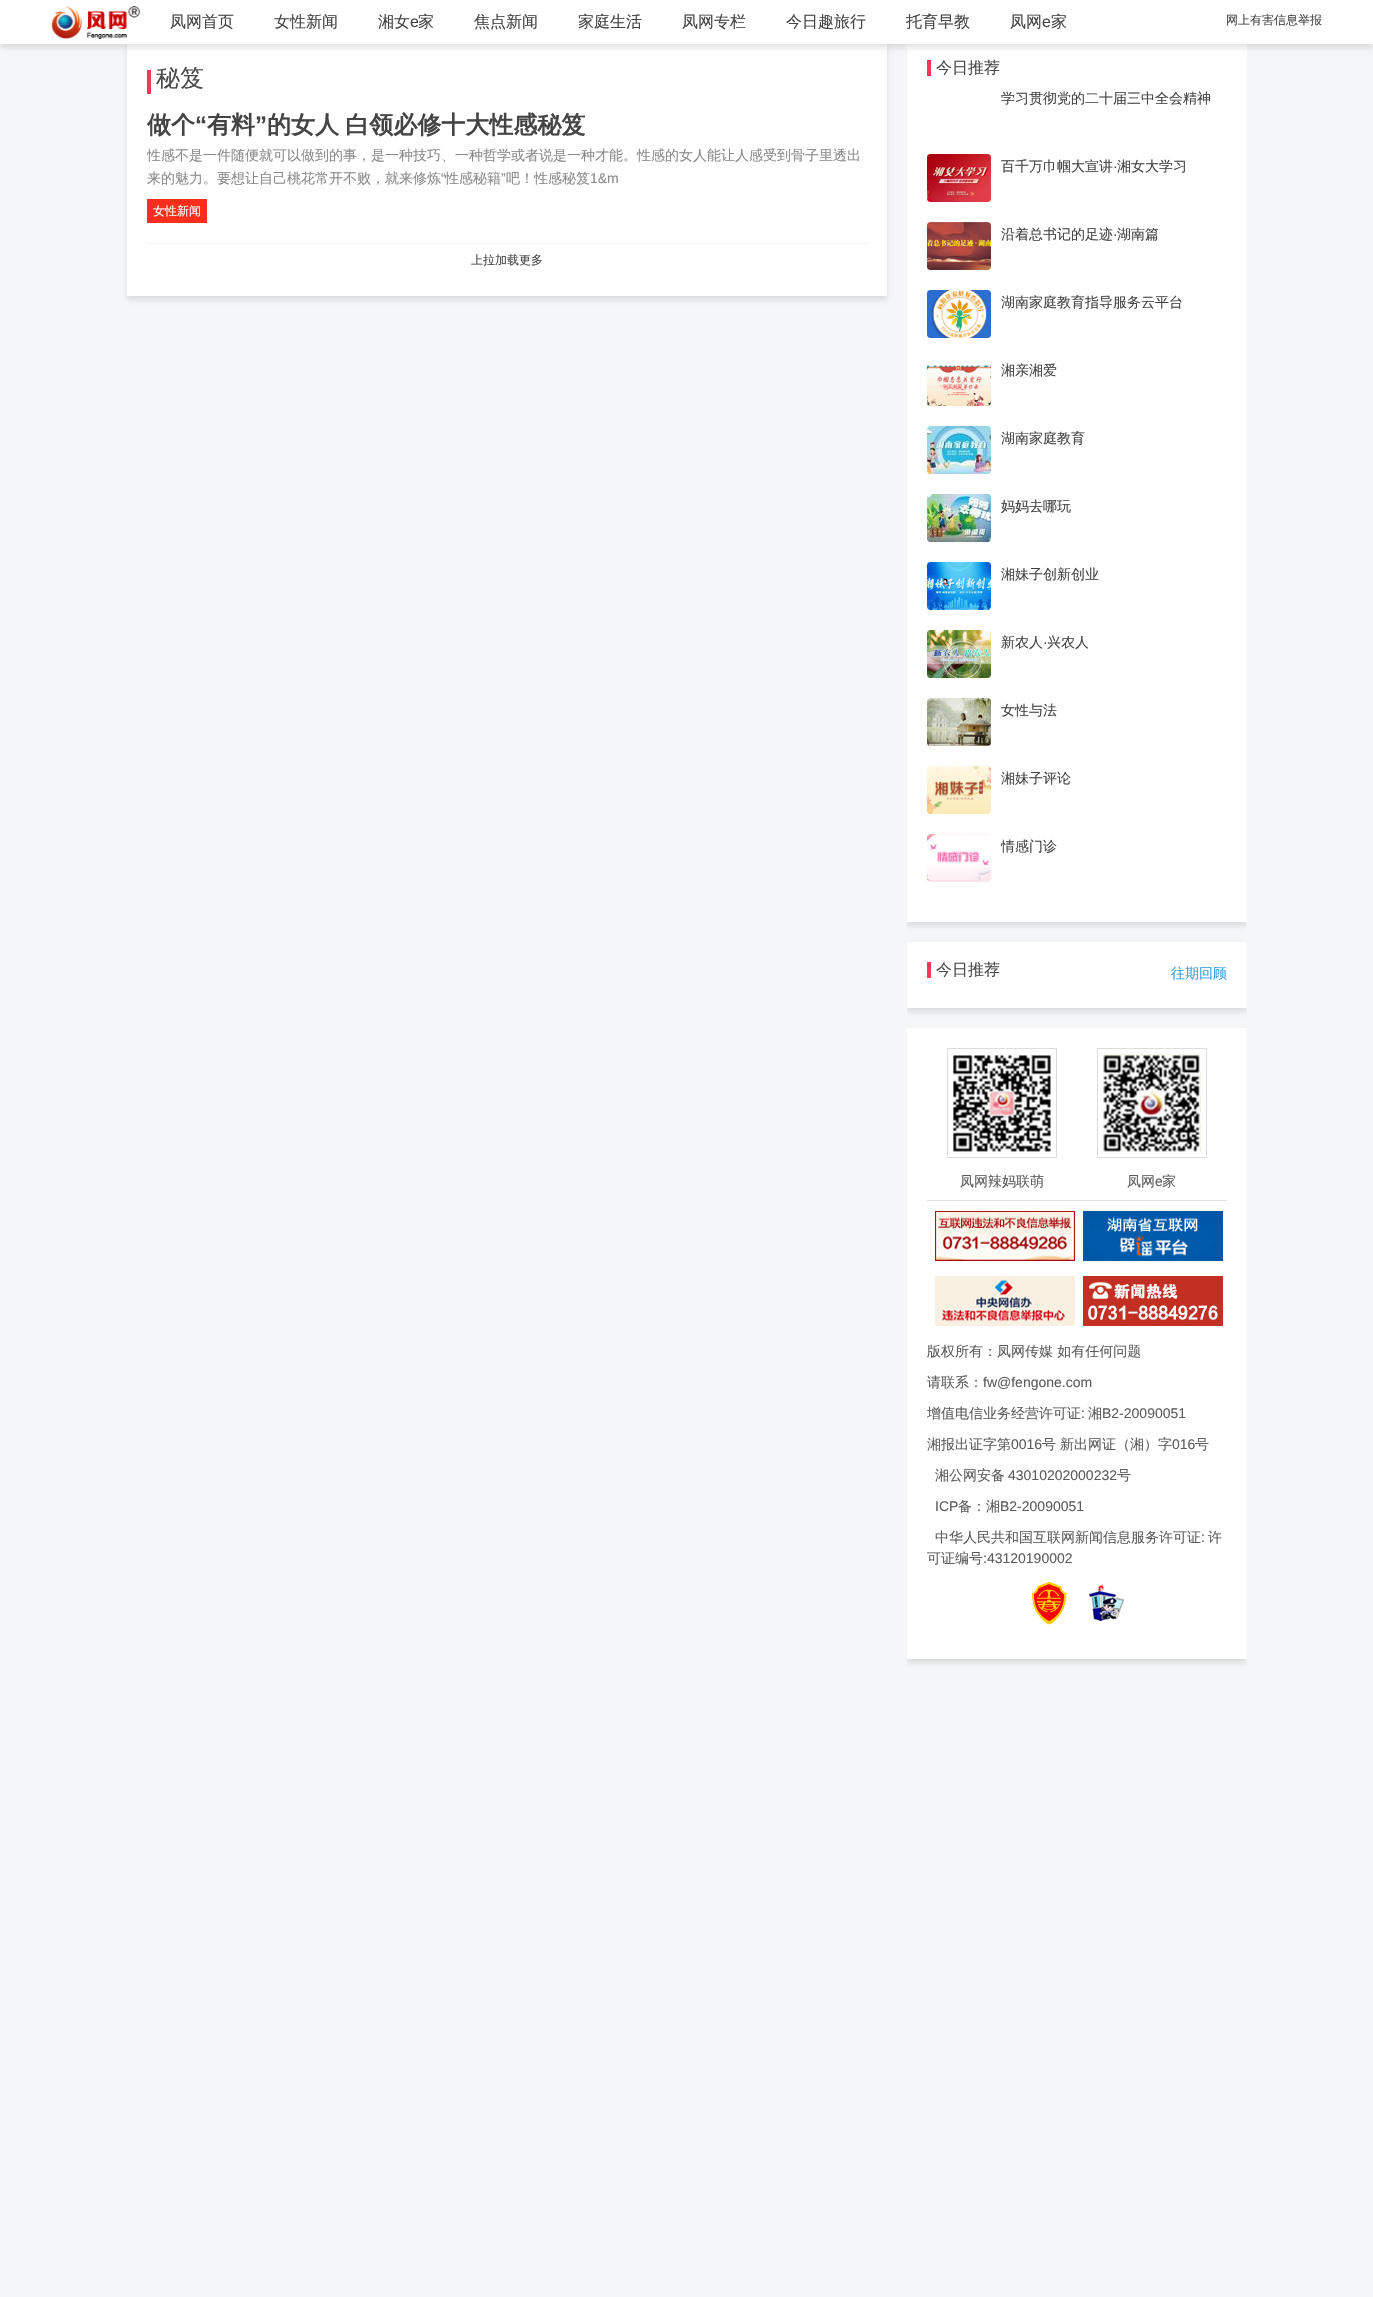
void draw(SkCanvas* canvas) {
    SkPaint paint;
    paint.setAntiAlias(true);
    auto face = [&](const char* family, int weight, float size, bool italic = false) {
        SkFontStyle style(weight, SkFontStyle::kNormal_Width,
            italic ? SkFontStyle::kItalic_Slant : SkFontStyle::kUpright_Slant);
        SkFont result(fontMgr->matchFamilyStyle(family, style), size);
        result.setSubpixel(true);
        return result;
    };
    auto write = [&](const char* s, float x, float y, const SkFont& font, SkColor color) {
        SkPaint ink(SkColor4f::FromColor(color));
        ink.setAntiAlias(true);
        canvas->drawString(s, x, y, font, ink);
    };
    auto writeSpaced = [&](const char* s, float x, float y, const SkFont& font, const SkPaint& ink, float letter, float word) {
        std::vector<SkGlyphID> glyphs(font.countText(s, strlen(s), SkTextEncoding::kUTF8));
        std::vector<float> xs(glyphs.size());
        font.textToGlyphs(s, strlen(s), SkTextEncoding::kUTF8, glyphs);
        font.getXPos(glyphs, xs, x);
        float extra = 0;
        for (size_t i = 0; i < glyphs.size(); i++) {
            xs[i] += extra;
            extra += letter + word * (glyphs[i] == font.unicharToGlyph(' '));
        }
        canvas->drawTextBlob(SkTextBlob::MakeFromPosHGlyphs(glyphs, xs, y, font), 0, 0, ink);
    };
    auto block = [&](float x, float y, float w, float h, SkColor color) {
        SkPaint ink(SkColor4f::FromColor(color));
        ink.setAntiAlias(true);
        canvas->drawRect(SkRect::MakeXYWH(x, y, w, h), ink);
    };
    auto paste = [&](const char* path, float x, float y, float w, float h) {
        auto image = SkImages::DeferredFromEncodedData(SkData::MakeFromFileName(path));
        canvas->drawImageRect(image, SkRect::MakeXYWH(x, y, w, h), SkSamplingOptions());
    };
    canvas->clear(SkColorSetRGB(245, 246, 247));
    paint.setColor(SkColorSetARGB(26, 0, 0, 0));
    paint.setMaskFilter(SkMaskFilter::MakeBlur(kNormal_SkBlurStyle, 2.5f));
    canvas->drawRect(SkRect::MakeXYWH(127, 44, 760, 256), paint);
    paint.setMaskFilter(nullptr);
    block(127, 44, 760, 252, SK_ColorWHITE);
    canvas->save();
    canvas->clipRect(SkRect::MakeXYWH(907, 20, 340, 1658));
    paint.setMaskFilter(SkMaskFilter::MakeBlur(kNormal_SkBlurStyle, 2.5f));
    canvas->drawRect(SkRect::MakeXYWH(907, 44, 340, 882), paint);
    paint.setMaskFilter(nullptr);
    canvas->restore();
    block(907, 44, 340, 878, SK_ColorWHITE);
    paint.setMaskFilter(SkMaskFilter::MakeBlur(kNormal_SkBlurStyle, 2.5f));
    canvas->drawRect(SkRect::MakeXYWH(0, 4, 1373, 44), paint);
    paint.setMaskFilter(nullptr);
    block(0, 0, 1373, 44, SK_ColorWHITE);
    paste("pic1.png", 51, 6, 89, 33);
    auto kFont1 = face("WenQuanYi Zen Hei", 500, 16);
    write("凤网首页", 170, 27, kFont1, SkColorSetRGB(68, 68, 68));
    write("女性新闻", 274, 27, kFont1, SkColorSetRGB(68, 68, 68));
    write("湘女", 378, 27, kFont1, SkColorSetRGB(68, 68, 68));
    auto kFont2 = face("Liberation Sans", 400, 16);
    write("e", 410, 27, kFont2, SkColorSetRGB(68, 68, 68));
    write("家", 418, 27, kFont1, SkColorSetRGB(68, 68, 68));
    write("焦点新闻", 474, 27, kFont1, SkColorSetRGB(68, 68, 68));
    write("家庭生活", 578, 27, kFont1, SkColorSetRGB(68, 68, 68));
    write("凤网专栏", 682, 27, kFont1, SkColorSetRGB(68, 68, 68));
    write("今日趣旅行", 786, 27, kFont1, SkColorSetRGB(68, 68, 68));
    write("托育早教", 906, 27, kFont1, SkColorSetRGB(68, 68, 68));
    write("凤网", 1010, 27, kFont1, SkColorSetRGB(68, 68, 68));
    write("e", 1042, 27, kFont2, SkColorSetRGB(68, 68, 68));
    write("家", 1051, 27, kFont1, SkColorSetRGB(68, 68, 68));
    auto kFont3 = face("WenQuanYi Zen Hei", 500, 12);
    write("网上有害信息举报", 1226, 24, kFont3, SkColorSetRGB(68, 68, 68));
    block(147, 70, 4, 24, SkColorSetRGB(246, 55, 86));
    auto kFont4 = face("WenQuanYi Zen Hei", 500, 24);
    write("秘笈", 156, 86, kFont4, SkColorSetRGB(74, 74, 74));
    block(147, 243, 720, 1, SkColorSetRGB(243, 243, 243));
    auto kFont5 = face("WenQuanYi Zen Hei", 700, 24);
    write("做个", 147, 133, kFont5, SkColorSetRGB(68, 68, 68));
    auto kFont6 = face("Liberation Sans", 700, 24);
    write("“", 195, 133, kFont6, SkColorSetRGB(68, 68, 68));
    write("有料", 207, 133, kFont5, SkColorSetRGB(68, 68, 68));
    write("”", 255, 133, kFont6, SkColorSetRGB(68, 68, 68));
    paint.setColor(SkColorSetRGB(68, 68, 68));
    writeSpaced("的女人 白领必修十大性感秘笈", 267, 133, kFont5, paint, 0, -1);
    canvas->save();
    canvas->clipRect(SkRect::MakeXYWH(147, 144, 720, 45));
    auto kFont7 = face("WenQuanYi Zen Hei", 500, 14);
    write("性感不是一件随便就可以做到的事，是一种技巧、一种哲学或者说是一种才能。性感的女人能让人感受到骨子里透出", 147, 160, kFont7, SkColorSetRGB(138, 138, 138));
    canvas->restore();
    write("来的魅力。要想让自己桃花常开不败，就来修炼", 147, 183, kFont7, SkColorSetRGB(138, 138, 138));
    auto kFont8 = face("Liberation Sans", 400, 14);
    write("“", 441, 183, kFont8, SkColorSetRGB(138, 138, 138));
    write("性感秘籍", 445, 183, kFont7, SkColorSetRGB(138, 138, 138));
    write("”", 501, 183, kFont8, SkColorSetRGB(138, 138, 138));
    write("吧！性感秘笈", 506, 183, kFont7, SkColorSetRGB(138, 138, 138));
    write("1&m", 590, 183, kFont8, SkColorSetRGB(138, 138, 138));
    block(147, 199, 60, 24, SkColorSetRGB(249, 46, 29));
    write("女性新闻", 153, 215, kFont3, SK_ColorWHITE);
    write("上拉加载更多", 471, 264, kFont3, SkColorSetRGB(68, 68, 68));
    block(927, 60, 4, 16, SkColorSetRGB(246, 55, 86));
    write("今日推荐", 936, 73, kFont1, SkColorSetRGB(74, 74, 74));
    write("学习贯彻党的二十届三中全会精神", 1001, 103, kFont7, SkColorSetRGB(68, 68, 68));
    paste("pic2.png", 927, 154, 64, 48);
    write("百千万巾帼大宣讲", 1001, 171, kFont7, SkColorSetRGB(68, 68, 68));
    write("·", 1113, 171, kFont8, SkColorSetRGB(68, 68, 68));
    write("湘女大学习", 1117, 171, kFont7, SkColorSetRGB(68, 68, 68));
    paste("pic3.png", 927, 222, 64, 48);
    write("沿着总书记的足迹", 1001, 239, kFont7, SkColorSetRGB(68, 68, 68));
    write("·", 1113, 239, kFont8, SkColorSetRGB(68, 68, 68));
    write("湖南篇", 1117, 239, kFont7, SkColorSetRGB(68, 68, 68));
    paste("pic4.png", 927, 290, 64, 48);
    write("湖南家庭教育指导服务云平台", 1001, 307, kFont7, SkColorSetRGB(68, 68, 68));
    paste("pic5.png", 927, 365, 64, 41);
    write("湘亲湘爱", 1001, 375, kFont7, SkColorSetRGB(68, 68, 68));
    paste("pic6.png", 927, 426, 64, 48);
    write("湖南家庭教育", 1001, 443, kFont7, SkColorSetRGB(68, 68, 68));
    paste("pic7.png", 927, 494, 64, 48);
    write("妈妈去哪玩", 1001, 511, kFont7, SkColorSetRGB(68, 68, 68));
    paste("pic8.png", 927, 562, 64, 48);
    write("湘妹子创新创业", 1001, 579, kFont7, SkColorSetRGB(68, 68, 68));
    paste("pic9.png", 927, 630, 64, 48);
    write("新农人", 1001, 647, kFont7, SkColorSetRGB(68, 68, 68));
    write("·", 1043, 647, kFont8, SkColorSetRGB(68, 68, 68));
    write("兴农人", 1047, 647, kFont7, SkColorSetRGB(68, 68, 68));
    paste("pic10.png", 927, 698, 64, 48);
    write("女性与法", 1001, 715, kFont7, SkColorSetRGB(68, 68, 68));
    paste("pic11.png", 927, 766, 64, 48);
    write("湘妹子评论", 1001, 783, kFont7, SkColorSetRGB(68, 68, 68));
    paste("pic12.png", 927, 834, 64, 48);
    canvas->save();
    canvas->clipRect(SkRect::MakeXYWH(1001, 834, 226, 48));
    write("情感门诊", 1001, 851, kFont7, SkColorSetRGB(68, 68, 68));
    canvas->restore();
    canvas->save();
    canvas->clipRect(SkRect::MakeXYWH(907, 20, 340, 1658));
    paint.setColor(SkColorSetARGB(26, 0, 0, 0));
    paint.setMaskFilter(SkMaskFilter::MakeBlur(kNormal_SkBlurStyle, 2.5f));
    canvas->drawRect(SkRect::MakeXYWH(907, 946, 340, 66), paint);
    paint.setMaskFilter(nullptr);
    canvas->restore();
    block(907, 942, 340, 66, SK_ColorWHITE);
    block(927, 962, 4, 16, SkColorSetRGB(246, 55, 86));
    write("今日推荐", 936, 975, kFont1, SkColorSetRGB(74, 74, 74));
    write("往期回顾", 1171, 978, kFont7, SkColorSetRGB(52, 158, 223));
    canvas->save();
    canvas->clipRect(SkRect::MakeXYWH(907, 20, 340, 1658));
    paint.setMaskFilter(SkMaskFilter::MakeBlur(kNormal_SkBlurStyle, 2.5f));
    canvas->drawRect(SkRect::MakeXYWH(907, 1032, 340, 631), paint);
    paint.setMaskFilter(nullptr);
    canvas->restore();
    block(907, 1028, 340, 631, SK_ColorWHITE);
    paint.setStyle(SkPaint::kStroke_Style);
    paint.setStrokeWidth(1);
    paint.setColor(SkColorSetRGB(221, 221, 221));
    canvas->drawRect(SkRect::MakeXYWH(947.5f, 1048.5f, 109, 109), paint);
    paste("pic13.png", 953, 1054, 98, 98);
    write("凤网辣妈联萌", 960, 1186, kFont7, SkColorSetRGB(92, 92, 92));
    canvas->drawRect(SkRect::MakeXYWH(1097.5f, 1048.5f, 109, 109), paint);
    paste("pic14.png", 1103, 1054, 98, 98);
    write("凤网", 1127, 1186, kFont7, SkColorSetRGB(92, 92, 92));
    write("e", 1155, 1186, kFont8, SkColorSetRGB(92, 92, 92));
    write("家", 1162, 1186, kFont7, SkColorSetRGB(92, 92, 92));
    block(927, 1200, 300, 1, SkColorSetRGB(224, 224, 224));
    paste("pic15.png", 935, 1211, 140, 50);
    paste("pic16.png", 1083, 1211, 140, 50);
    paste("pic17.png", 935, 1276, 140, 50);
    paste("pic18.png", 1083, 1276, 140, 50);
    write("版权所有：凤网传媒 如有任何问题", 927, 1356, kFont7, SkColorSetRGB(92, 92, 92));
    write("请联系：", 927, 1387, kFont7, SkColorSetRGB(92, 92, 92));
    write("fw@fengone.com", 983, 1387, kFont8, SkColorSetRGB(92, 92, 92));
    canvas->save();
    canvas->clipRect(SkRect::MakeXYWH(927, 1201, 300, 436));
    write("增值电信业务经营许可证", 927, 1418, kFont7, SkColorSetRGB(92, 92, 92));
    canvas->restore();
    write(":", 1081, 1418, kFont8, SkColorSetRGB(92, 92, 92));
    write("湘", 1088, 1418, kFont7, SkColorSetRGB(92, 92, 92));
    write("B2-20090051", 1102, 1418, kFont8, SkColorSetRGB(92, 92, 92));
    write("湘报出证字第", 927, 1449, kFont7, SkColorSetRGB(92, 92, 92));
    write("0016", 1011, 1449, kFont8, SkColorSetRGB(92, 92, 92));
    write("号", 1042, 1449, kFont7, SkColorSetRGB(92, 92, 92));
    write("新出网证（湘）字", 1060, 1449, kFont7, SkColorSetRGB(92, 92, 92));
    write("016", 1172, 1449, kFont8, SkColorSetRGB(92, 92, 92));
    write("号", 1195, 1449, kFont7, SkColorSetRGB(92, 92, 92));
    write("湘公网安备", 935, 1480, kFont7, SkColorSetRGB(92, 92, 92));
    write("43010202000232", 1008, 1480, kFont8, SkColorSetRGB(92, 92, 92));
    write("号", 1117, 1480, kFont7, SkColorSetRGB(92, 92, 92));
    write("ICP", 935, 1511, kFont8, SkColorSetRGB(92, 92, 92));
    write("备：湘", 958, 1511, kFont7, SkColorSetRGB(92, 92, 92));
    write("B2-20090051", 1000, 1511, kFont8, SkColorSetRGB(92, 92, 92));
    write("中华人民共和国互联网新闻信息服务许可证", 935, 1542, kFont7, SkColorSetRGB(92, 92, 92));
    write(":", 1201, 1542, kFont8, SkColorSetRGB(92, 92, 92));
    write("许", 1208, 1542, kFont7, SkColorSetRGB(92, 92, 92));
    write("可证编号", 927, 1563, kFont7, SkColorSetRGB(92, 92, 92));
    write(":43120190002", 983, 1563, kFont8, SkColorSetRGB(92, 92, 92));
    paste("pic19.png", 1032, 1582, 35, 43);
    paste("pic20.png", 1089, 1584, 35, 37);
}
